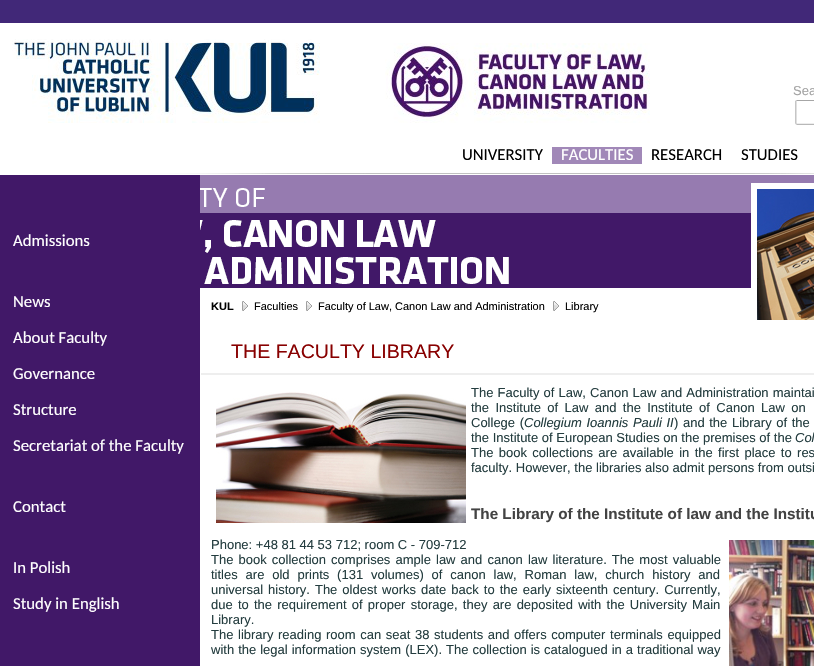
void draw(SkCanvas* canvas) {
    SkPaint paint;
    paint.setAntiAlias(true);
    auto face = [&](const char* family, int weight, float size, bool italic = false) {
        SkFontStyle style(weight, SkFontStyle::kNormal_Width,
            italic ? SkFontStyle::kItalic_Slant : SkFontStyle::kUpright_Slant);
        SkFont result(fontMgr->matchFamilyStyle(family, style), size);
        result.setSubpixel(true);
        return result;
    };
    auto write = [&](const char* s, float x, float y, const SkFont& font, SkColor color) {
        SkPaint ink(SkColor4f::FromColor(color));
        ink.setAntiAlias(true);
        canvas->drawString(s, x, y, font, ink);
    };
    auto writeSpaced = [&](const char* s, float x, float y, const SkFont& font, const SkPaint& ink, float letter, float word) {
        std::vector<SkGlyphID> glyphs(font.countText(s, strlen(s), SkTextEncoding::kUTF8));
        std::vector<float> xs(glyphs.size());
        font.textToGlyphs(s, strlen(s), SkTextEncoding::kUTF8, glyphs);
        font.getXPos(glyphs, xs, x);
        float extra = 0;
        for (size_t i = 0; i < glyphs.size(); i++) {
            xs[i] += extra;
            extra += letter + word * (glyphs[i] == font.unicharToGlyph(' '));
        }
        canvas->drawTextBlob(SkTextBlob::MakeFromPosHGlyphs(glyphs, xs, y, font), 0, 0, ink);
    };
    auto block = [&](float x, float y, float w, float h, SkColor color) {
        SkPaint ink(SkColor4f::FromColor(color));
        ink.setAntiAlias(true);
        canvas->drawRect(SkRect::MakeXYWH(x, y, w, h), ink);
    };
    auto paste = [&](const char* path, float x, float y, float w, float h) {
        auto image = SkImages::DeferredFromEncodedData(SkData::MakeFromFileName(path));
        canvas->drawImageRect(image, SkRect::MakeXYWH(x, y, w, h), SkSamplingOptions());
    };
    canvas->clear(SK_ColorWHITE);
    paste("pic1.png", 200, 175, 614, 113);
    block(0, 0, 814, 23, SkColorSetRGB(65, 40, 120));
    paste("pic2.png", 12, 39, 308, 84);
    paste("pic3.png", 385, 43, 265, 80);
    auto kFont1 = face("Liberation Sans", 400, 13);
    write("Sea", 793, 95, kFont1, SkColorSetRGB(163, 163, 163));
    paste("pic4.png", 795, 100, 19, 25);
    auto kFont2 = face("Carlito", 400, 16.75f);
    write("UNIVERSITY", 462, 160, kFont2, SK_ColorBLACK);
    block(552, 147, 90, 17, SkColorSetRGB(161, 136, 184));
    write("FACULTIES", 561, 160, kFont2, SK_ColorWHITE);
    write("RESEARCH", 651, 160, kFont2, SK_ColorBLACK);
    write("STUDIES", 741, 160, kFont2, SK_ColorBLACK);
    paste("pic5.png", 0, 173, 814, 2);
    block(0, 175, 200, 491, SkColorSetRGB(65, 24, 104));
    write("Admissions", 13, 246, kFont2, SK_ColorWHITE);
    write("News", 13, 307, kFont2, SK_ColorWHITE);
    write("About Faculty", 13, 343, kFont2, SK_ColorWHITE);
    write("Governance", 13, 379, kFont2, SK_ColorWHITE);
    write("Structure", 13, 415, kFont2, SK_ColorWHITE);
    write("Secretariat of the Faculty", 13, 451, kFont2, SK_ColorWHITE);
    write("Contact", 13, 512, kFont2, SK_ColorWHITE);
    write("In Polish", 13, 573, kFont2, SK_ColorWHITE);
    write("Study in English", 13, 609, kFont2, SK_ColorWHITE);
    auto kFont3 = face("Liberation Sans", 700, 11);
    write("KUL", 211, 310, kFont3, SK_ColorBLACK);
    paste("pic6.png", 242, 301, 6, 10);
    auto kFont4 = face("Liberation Sans", 400, 11);
    write("Faculties", 254, 310, kFont4, SK_ColorBLACK);
    paste("pic6.png", 306, 301, 6, 10);
    write("Faculty of Law, Canon Law and Administration", 318, 310, kFont4, SK_ColorBLACK);
    paste("pic6.png", 553, 301, 6, 10);
    write("Library", 565, 310, kFont4, SK_ColorBLACK);
    block(751, 183, 63, 105, SK_ColorWHITE);
    paste("pic7.png", 757, 189, 57, 131);
    auto kFont5 = face("Liberation Sans", 400, 19.6f);
    write("THE FACULTY LIBRARY", 231, 358, kFont5, SkColorSetRGB(136, 0, 0));
    block(201, 373, 613, 2, SkColorSetRGB(238, 238, 238));
    paste("pic8.png", 216, 392, 250, 131);
    paint.setColor(SkColorSetRGB(36, 61, 63));
    writeSpaced("The Faculty of Law, Canon Law and Administration maintai", 471, 397, kFont1, paint, 0, 0.5f);
    writeSpaced("the Institute of Law and the Institute of Canon Law on", 471, 412, kFont1, paint, 0, 2.75f);
    writeSpaced("College (", 471, 427, kFont1, paint, 0, 1);
    auto kFont6 = face("Liberation Sans", 400, 13, true);
    writeSpaced("Collegium Ioannis Pauli II", 524, 427, kFont6, paint, 0, 1);
    writeSpaced(") and the Library of the", 674, 427, kFont1, paint, 0, 1);
    write("the Institute of European Studies on the premises of the", 471, 442, kFont1, SkColorSetRGB(36, 61, 63));
    write("Col", 795, 442, kFont6, SkColorSetRGB(36, 61, 63));
    writeSpaced("The book collections are available in the first place to res", 471, 457, kFont1, paint, 0, 1.75f);
    write("faculty. However, the libraries also admit persons from outsi", 471, 472, kFont1, SkColorSetRGB(36, 61, 63));
    auto kFont7 = face("Liberation Sans", 700, 15.25f);
    write("The Library of the Institute of law and the Institu", 471, 519, kFont7, SkColorSetRGB(67, 67, 67));
    write("Phone: +48 81 44 53 712; room C - 709-712", 211, 549, kFont1, SkColorSetRGB(36, 61, 63));
    paste("pic9.png", 729, 540, 85, 126);
    writeSpaced("The book collection comprises ample law and canon law literature. The most valuable", 211, 564, kFont1, paint, 0, 1.5f);
    writeSpaced("titles are old prints (131 volumes) of canon law, Roman law, church history and", 211, 579, kFont1, paint, 0, 4.25f);
    writeSpaced("universal history. The oldest works date back to the early sixteenth century. Currently,", 211, 594, kFont1, paint, 0, 1.4f);
    writeSpaced("due to the requirement of proper storage, they are deposited with the University Main", 211, 609, kFont1, paint, 0, 1.6f);
    write("Library.", 211, 624, kFont1, SkColorSetRGB(36, 61, 63));
    writeSpaced("The library reading room can seat 38 students and offers computer terminals equipped", 211, 639, kFont1, paint, 0, 1);
    writeSpaced("with the legal information system (LEX). The collection is catalogued in a traditional way", 211, 654, kFont1, paint, 0, 0.4f);
}
